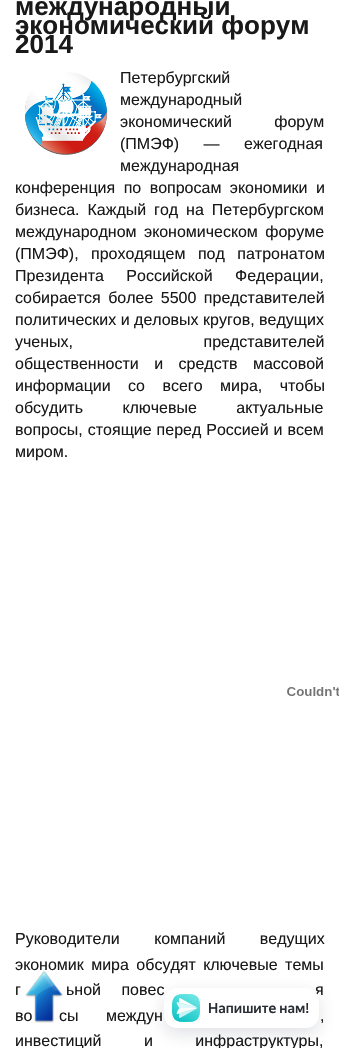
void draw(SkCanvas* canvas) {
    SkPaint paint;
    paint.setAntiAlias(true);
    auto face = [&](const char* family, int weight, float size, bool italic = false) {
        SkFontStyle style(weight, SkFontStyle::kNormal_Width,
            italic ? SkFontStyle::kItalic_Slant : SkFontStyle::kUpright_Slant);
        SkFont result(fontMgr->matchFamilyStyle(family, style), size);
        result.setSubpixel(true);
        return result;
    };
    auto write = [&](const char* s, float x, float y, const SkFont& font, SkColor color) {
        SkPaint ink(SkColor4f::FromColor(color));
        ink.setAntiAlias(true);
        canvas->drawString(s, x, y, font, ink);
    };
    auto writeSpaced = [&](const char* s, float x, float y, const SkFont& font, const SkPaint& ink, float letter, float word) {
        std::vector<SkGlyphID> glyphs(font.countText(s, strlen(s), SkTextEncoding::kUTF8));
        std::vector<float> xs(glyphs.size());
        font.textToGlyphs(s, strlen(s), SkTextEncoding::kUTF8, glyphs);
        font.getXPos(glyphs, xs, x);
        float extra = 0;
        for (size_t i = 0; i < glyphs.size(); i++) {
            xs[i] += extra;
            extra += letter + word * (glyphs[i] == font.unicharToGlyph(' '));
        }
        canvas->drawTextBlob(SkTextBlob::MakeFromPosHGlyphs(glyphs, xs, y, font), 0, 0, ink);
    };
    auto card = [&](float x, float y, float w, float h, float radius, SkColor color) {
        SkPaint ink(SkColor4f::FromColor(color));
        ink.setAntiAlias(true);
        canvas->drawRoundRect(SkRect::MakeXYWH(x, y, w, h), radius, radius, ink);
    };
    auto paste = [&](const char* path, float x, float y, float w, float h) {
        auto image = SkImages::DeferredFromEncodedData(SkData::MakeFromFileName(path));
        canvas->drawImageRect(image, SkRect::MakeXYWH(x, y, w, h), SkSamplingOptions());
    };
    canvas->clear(SK_ColorWHITE);
    auto kFont1 = face("Liberation Sans", 700, 26);
    write("международный", 15, 15, kFont1, SkColorSetRGB(25, 25, 25));
    write("экономический форум", 15, 34, kFont1, SkColorSetRGB(25, 25, 25));
    write("2014", 15, 53, kFont1, SkColorSetRGB(25, 25, 25));
    paste("pic1.png", 25, 72, 82, 83);
    auto kFont2 = face("Liberation Sans", 400, 16);
    write("Петербургский", 120, 83, kFont2, SkColorSetRGB(25, 25, 25));
    write("международный", 120, 105, kFont2, SkColorSetRGB(25, 25, 25));
    paint.setColor(SkColorSetRGB(25, 25, 25));
    writeSpaced("экономический форум", 120, 127, kFont2, paint, 0, 38);
    writeSpaced("(ПМЭФ) — ежегодная", 120, 149, kFont2, paint, 0, 20);
    write("международная", 120, 171, kFont2, SkColorSetRGB(25, 25, 25));
    writeSpaced("конференция по вопросам экономики и", 15, 193, kFont2, paint, 0, 4);
    writeSpaced("бизнеса. Каждый год на Петербургском", 15, 215, kFont2, paint, 0, 3.5f);
    writeSpaced("международном экономическом форуме", 15, 237, kFont2, paint, 0, 3);
    writeSpaced("(ПМЭФ), проходящем под патронатом", 15, 259, kFont2, paint, 0, 8);
    writeSpaced("Президента Российской Федерации,", 15, 281, kFont2, paint, 0, 18);
    writeSpaced("собирается более 5500 представителей", 15, 303, kFont2, paint, 0, 3);
    write("политических и деловых кругов, ведущих", 15, 325, kFont2, SkColorSetRGB(25, 25, 25));
    writeSpaced("ученых, представителей", 15, 347, kFont2, paint, 0, 126);
    writeSpaced("общественности и средств массовой", 15, 369, kFont2, paint, 0, 11);
    writeSpaced("информации со всего мира, чтобы", 15, 391, kFont2, paint, 0, 13);
    writeSpaced("обсудить ключевые актуальные", 15, 413, kFont2, paint, 0, 35);
    writeSpaced("вопросы, стоящие перед Россией и всем", 15, 435, kFont2, paint, 0, 0.5f);
    write("миром.", 15, 457, kFont2, SkColorSetRGB(25, 25, 25));
    paste("pic2.png", 287, 687, 52, 9);
    writeSpaced("Руководители компаний ведущих", 15, 944, kFont2, paint, 0, 30);
    writeSpaced("экономик мира обсудят ключевые темы", 15, 970, kFont2, paint, 0, 3);
    writeSpaced("г", 15, 995, kFont2, paint, 0, 16);
    writeSpaced("ьной повес", 66, 995, kFont2, paint, 0, 16);
    writeSpaced("я", 315, 995, kFont2, paint, 0, 16);
    writeSpaced("во", 15, 1021, kFont2, paint, 0, 23);
    writeSpaced("сы междун", 59, 1021, kFont2, paint, 0, 23);
    writeSpaced(",", 320, 1021, kFont2, paint, 0, 23);
    writeSpaced("инвестиций и инфраструктуры,", 15, 1046, kFont2, paint, 0, 38);
    paste("pic3.png", 25, 971, 38, 52);
    paint.setColor(SkColorSetARGB(33, 14, 21, 47));
    paint.setMaskFilter(SkMaskFilter::MakeBlur(kNormal_SkBlurStyle, 9));
    canvas->drawRoundRect(SkRect::MakeXYWH(164, 994, 155, 40), 13, 13, paint);
    paint.setMaskFilter(nullptr);
    card(164, 988, 155, 40, 13, SK_ColorWHITE);
    paste("pic4.png", 172, 994, 28, 28);
    auto kFont3 = face("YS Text", 500, 14);
    write("Напишите нам!", 208, 1013, kFont3, SkColorSetRGB(41, 44, 51));
}
